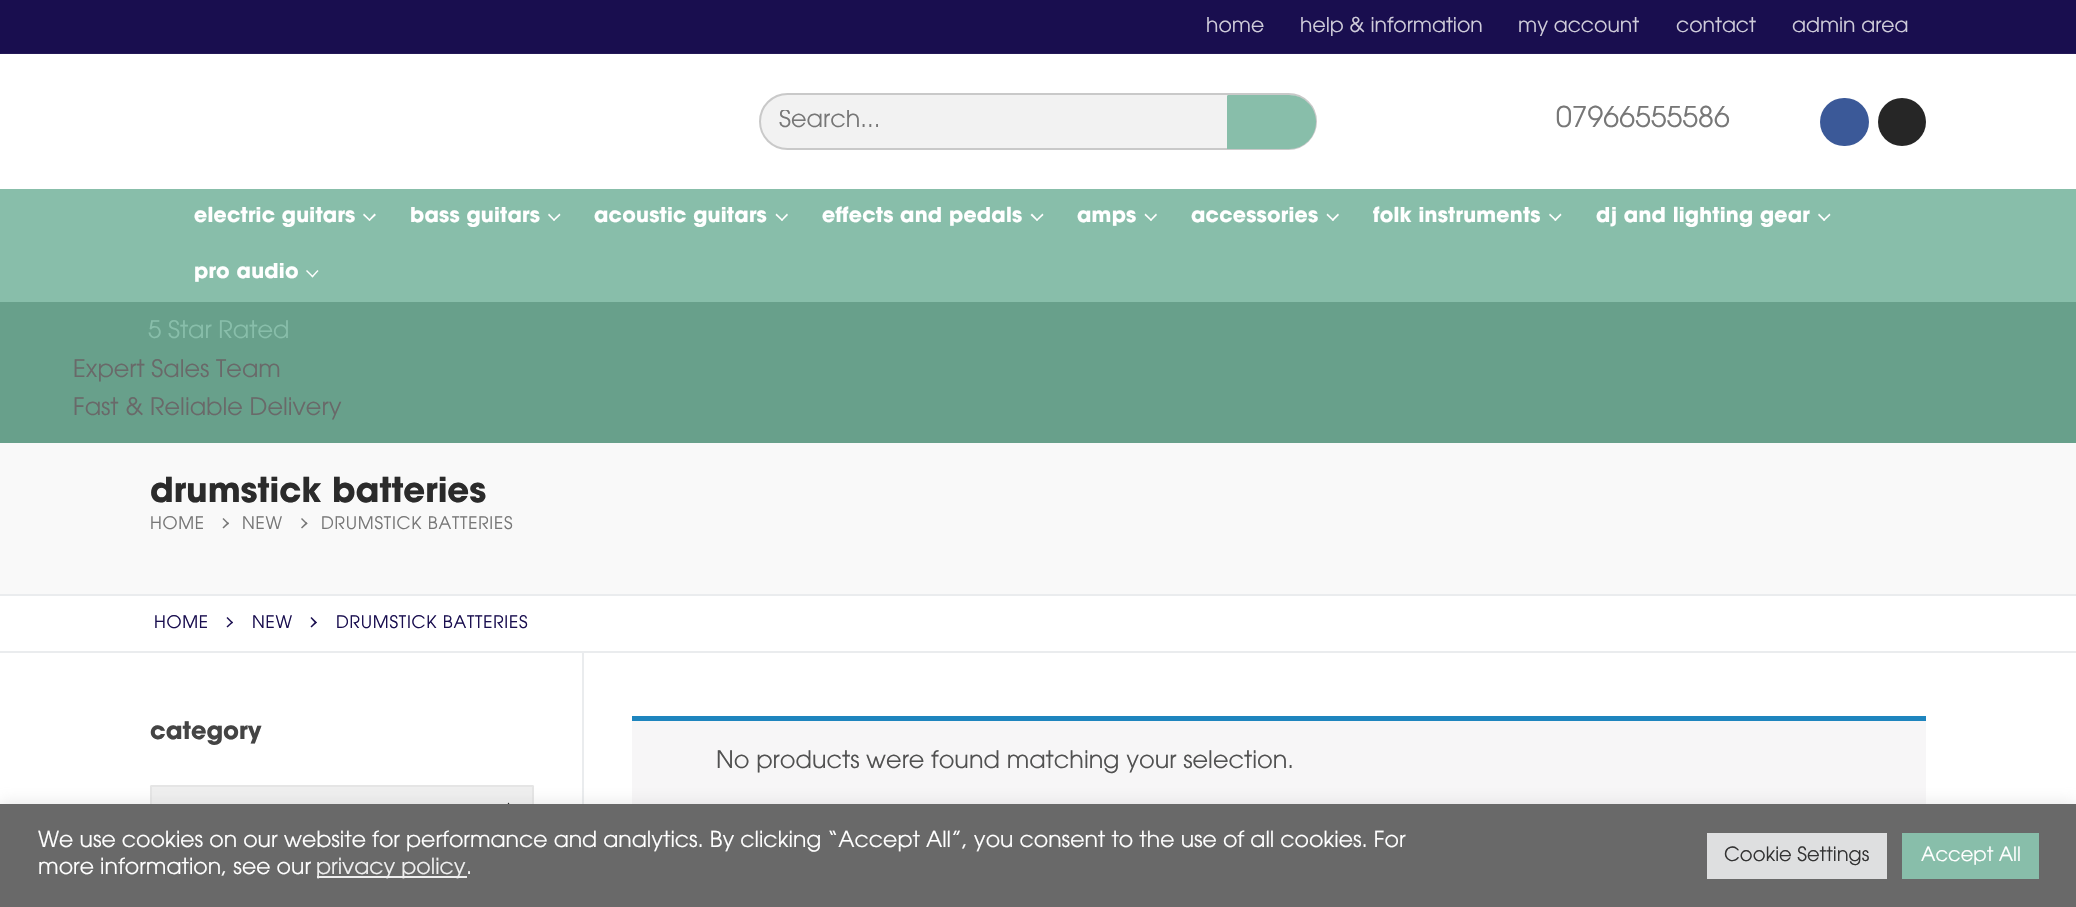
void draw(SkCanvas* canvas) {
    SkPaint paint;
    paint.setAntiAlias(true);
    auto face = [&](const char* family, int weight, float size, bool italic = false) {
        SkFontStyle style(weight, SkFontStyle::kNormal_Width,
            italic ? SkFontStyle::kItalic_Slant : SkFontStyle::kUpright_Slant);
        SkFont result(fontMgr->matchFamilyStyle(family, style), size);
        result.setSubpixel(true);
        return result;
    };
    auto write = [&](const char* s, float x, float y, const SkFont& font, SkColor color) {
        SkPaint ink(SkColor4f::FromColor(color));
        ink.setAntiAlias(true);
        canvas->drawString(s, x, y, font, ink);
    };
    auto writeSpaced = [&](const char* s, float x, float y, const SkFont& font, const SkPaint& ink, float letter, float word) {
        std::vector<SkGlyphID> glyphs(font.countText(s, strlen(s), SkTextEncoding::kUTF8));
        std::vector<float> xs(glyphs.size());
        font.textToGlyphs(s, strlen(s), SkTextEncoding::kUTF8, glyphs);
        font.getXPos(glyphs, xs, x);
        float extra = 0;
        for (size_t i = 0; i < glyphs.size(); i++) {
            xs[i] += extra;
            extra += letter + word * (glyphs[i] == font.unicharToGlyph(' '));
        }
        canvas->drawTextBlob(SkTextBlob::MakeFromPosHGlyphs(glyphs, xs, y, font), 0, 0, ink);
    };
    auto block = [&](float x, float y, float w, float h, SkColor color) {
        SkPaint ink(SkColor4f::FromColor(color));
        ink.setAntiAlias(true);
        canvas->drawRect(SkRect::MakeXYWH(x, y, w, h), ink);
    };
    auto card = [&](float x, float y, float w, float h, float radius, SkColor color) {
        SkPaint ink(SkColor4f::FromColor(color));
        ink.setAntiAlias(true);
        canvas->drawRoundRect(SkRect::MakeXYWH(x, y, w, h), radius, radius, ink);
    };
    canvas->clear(SK_ColorWHITE);
    block(0, 0, 2076, 54, SkColorSetRGB(25, 14, 79));
    auto kFont1 = face("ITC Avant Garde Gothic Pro", 300, 20.4f);
    write("home", 1206, 32, kFont1, SkColorSetRGB(207, 204, 218));
    write("help & information", 1300, 32, kFont1, SkColorSetRGB(207, 204, 218));
    write("my account", 1518, 32, kFont1, SkColorSetRGB(207, 204, 218));
    write("contact", 1676, 32, kFont1, SkColorSetRGB(207, 204, 218));
    write("admin area", 1792, 32, kFont1, SkColorSetRGB(207, 204, 218));
    canvas->save();
    canvas->clipRect(SkRect::MakeXYWH(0, 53, 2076, 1));
    paint.setColor(SkColorSetRGB(225, 229, 234));
    paint.setMaskFilter(SkMaskFilter::MakeBlur(kNormal_SkBlurStyle, 1.5f));
    canvas->drawRect(SkRect::MakeXYWH(0, 56, 2076, 135), paint);
    paint.setMaskFilter(nullptr);
    canvas->restore();
    paint.setColor(SkColorSetRGB(242, 242, 242));
    canvas->drawRoundRect(SkRect::MakeXYWH(760, 94, 556, 55), 27.5f, 27.5f, paint);
    paint.setStyle(SkPaint::kStroke_Style);
    paint.setStrokeWidth(2);
    paint.setColor(SkColorSetRGB(201, 201, 201));
    canvas->drawRoundRect(SkRect::MakeXYWH(760, 94, 556, 55), 27.5f, 27.5f, paint);
    canvas->save();
    canvas->clipRect(SkRect::MakeXYWH(779, 110, 484, 24));
    auto kFont2 = face("ITC Avant Garde Gothic Pro", 300, 24);
    write("Search...", 779, 127, kFont2, SkColorSetRGB(119, 119, 119));
    canvas->restore();
    paint.setStyle(SkPaint::kFill_Style);
    paint.setColor(SkColorSetRGB(136, 190, 170));
    canvas->drawPath(SkPathBuilder().moveTo(1228.5f, 95).lineTo(1289, 95).cubicTo(1304, 95, 1316, 107, 1316, 122).cubicTo(1316, 137, 1304, 149, 1289, 149).lineTo(1227, 149).lineTo(1227, 96.5f).cubicTo(1227, 95.5f, 1227.5f, 95, 1228.5f, 95).close().detach(), paint);
    auto kFont3 = face("ITC Avant Garde Gothic Pro", 300, 28.5f);
    write("07966555586", 1556, 127, kFont3, SkColorSetRGB(119, 119, 119));
    card(1820, 98, 49, 48, 24, SkColorSetRGB(59, 89, 152));
    paint.setColor(SkColorSetRGB(38, 38, 38));
    canvas->drawCircle(1902, 122, 24, paint);
    block(0, 189, 2076, 113, SkColorSetRGB(136, 190, 170));
    auto kFont4 = face("ITC Avant Garde Gothic Pro", 700, 20.4f);
    paint.setColor(SK_ColorWHITE);
    writeSpaced("electric guitars", 194, 222, kFont4, paint, 0.25f, 0);
    canvas->drawPath(SkPathBuilder().moveTo(369.5f, 221).lineTo(363, 215).lineTo(364, 213.5f).lineTo(370.5f, 220).close().detach(), paint);
    canvas->drawPath(SkPathBuilder().moveTo(369.5f, 221).lineTo(368.5f, 220).lineTo(374.5f, 213.5f).lineTo(376, 215).close().detach(), paint);
    writeSpaced("bass guitars", 410, 222, kFont4, paint, 0.25f, 0);
    canvas->drawPath(SkPathBuilder().moveTo(554, 221).lineTo(548, 215).lineTo(549, 213.5f).lineTo(555, 220).close().detach(), paint);
    canvas->drawPath(SkPathBuilder().moveTo(554, 221).lineTo(553, 220).lineTo(559.5f, 213.5f).lineTo(560.5f, 215).close().detach(), paint);
    writeSpaced("acoustic guitars", 594, 222, kFont4, paint, 0.25f, 0);
    canvas->drawPath(SkPathBuilder().moveTo(782, 221).lineTo(775.5f, 215).lineTo(776.5f, 213.5f).lineTo(783, 220).close().detach(), paint);
    canvas->drawPath(SkPathBuilder().moveTo(782, 221).lineTo(781, 220).lineTo(787, 213.5f).lineTo(788, 215).close().detach(), paint);
    writeSpaced("effects and pedals", 822, 222, kFont4, paint, 0.25f, 0);
    canvas->drawPath(SkPathBuilder().moveTo(1037, 221).lineTo(1030.5f, 215).lineTo(1032, 213.5f).lineTo(1038, 220).close().detach(), paint);
    canvas->drawPath(SkPathBuilder().moveTo(1037, 221).lineTo(1036, 220).lineTo(1042.5f, 213.5f).lineTo(1043.5f, 215).close().detach(), paint);
    writeSpaced("amps", 1077, 222, kFont4, paint, 0.25f, 0);
    canvas->drawPath(SkPathBuilder().moveTo(1151, 221).lineTo(1144.5f, 215).lineTo(1145.5f, 213.5f).lineTo(1152, 220).close().detach(), paint);
    canvas->drawPath(SkPathBuilder().moveTo(1151, 221).lineTo(1150, 220).lineTo(1156, 213.5f).lineTo(1157, 215).close().detach(), paint);
    writeSpaced("accessories", 1191, 222, kFont4, paint, 0.25f, 0);
    canvas->drawPath(SkPathBuilder().moveTo(1333, 221).lineTo(1326.5f, 215).lineTo(1327.5f, 213.5f).lineTo(1334, 220).close().detach(), paint);
    canvas->drawPath(SkPathBuilder().moveTo(1333, 221).lineTo(1331.5f, 220).lineTo(1338, 213.5f).lineTo(1339, 215).close().detach(), paint);
    writeSpaced("folk instruments", 1373, 222, kFont4, paint, 0.25f, 0);
    canvas->drawPath(SkPathBuilder().moveTo(1555.5f, 221).lineTo(1549, 215).lineTo(1550, 213.5f).lineTo(1556.5f, 220).close().detach(), paint);
    canvas->drawPath(SkPathBuilder().moveTo(1555.5f, 221).lineTo(1554, 220).lineTo(1560.5f, 213.5f).lineTo(1561.5f, 215).close().detach(), paint);
    writeSpaced("dj and lighting gear", 1596, 222, kFont4, paint, 0.25f, 0);
    canvas->drawPath(SkPathBuilder().moveTo(1824, 221).lineTo(1818, 215).lineTo(1819, 213.5f).lineTo(1825.5f, 220).close().detach(), paint);
    canvas->drawPath(SkPathBuilder().moveTo(1824, 221).lineTo(1823, 220).lineTo(1829.5f, 213.5f).lineTo(1830.5f, 215).close().detach(), paint);
    writeSpaced("pro audio", 194, 278, kFont4, paint, 0.25f, 0);
    canvas->drawPath(SkPathBuilder().moveTo(312.5f, 277.5f).lineTo(306, 271).lineTo(307, 270).lineTo(313.5f, 276.5f).close().detach(), paint);
    canvas->drawPath(SkPathBuilder().moveTo(312.5f, 277.5f).lineTo(311.5f, 276.5f).lineTo(317.5f, 270).lineTo(318.5f, 271).close().detach(), paint);
    block(0, 302, 2076, 141, SkColorSetRGB(104, 160, 139));
    write("5 Star Rated", 148, 338, kFont2, SkColorSetRGB(136, 190, 170));
    write("Expert Sales Team", 73, 377, kFont2, SkColorSetRGB(105, 105, 105));
    write("Fast & Reliable Delivery", 73, 415, kFont2, SkColorSetRGB(105, 105, 105));
    block(0, 443, 2076, 151, SkColorSetRGB(249, 249, 249));
    block(0, 594, 2076, 2, SkColorSetRGB(234, 236, 238));
    auto kFont5 = face("ITC Avant Garde Gothic Pro", 700, 34);
    write("drumstick batteries", 150, 502, kFont5, SkColorSetRGB(43, 43, 43));
    auto kFont6 = face("ITC Avant Garde Gothic Pro", 300, 17.25f);
    paint.setColor(SkColorSetRGB(119, 119, 119));
    writeSpaced("HOME", 150, 529, kFont6, paint, 0.75f, 0);
    canvas->drawPath(SkPathBuilder().moveTo(229, 523.5f).lineTo(223.5f, 528.5f).lineTo(222.5f, 527.5f).lineTo(228, 522).close().detach(), paint);
    canvas->drawPath(SkPathBuilder().moveTo(229, 523.5f).lineTo(228, 524.5f).lineTo(222.5f, 519).lineTo(223.5f, 518).close().detach(), paint);
    writeSpaced("NEW", 242, 529, kFont6, paint, 0.75f, 0);
    canvas->drawPath(SkPathBuilder().moveTo(307.5f, 523.5f).lineTo(302, 528.5f).lineTo(301, 527.5f).lineTo(306.5f, 522).close().detach(), paint);
    canvas->drawPath(SkPathBuilder().moveTo(307.5f, 523.5f).lineTo(306.5f, 524.5f).lineTo(301, 519).lineTo(302, 518).close().detach(), paint);
    writeSpaced("DRUMSTICK BATTERIES", 321, 529, kFont6, paint, 0.75f, 0);
    block(0, 651, 2076, 2, SkColorSetRGB(234, 236, 238));
    paint.setColor(SkColorSetRGB(25, 14, 79));
    writeSpaced("HOME", 154, 628, kFont6, paint, 0.75f, 0);
    canvas->drawPath(SkPathBuilder().moveTo(233, 622.5f).lineTo(227.5f, 627.5f).lineTo(226.5f, 626.5f).lineTo(232, 621.5f).close().detach(), paint);
    canvas->drawPath(SkPathBuilder().moveTo(233, 622.5f).lineTo(232, 623.5f).lineTo(226.5f, 618).lineTo(227.5f, 617).close().detach(), paint);
    writeSpaced("NEW", 252, 628, kFont6, paint, 0.75f, 0);
    canvas->drawPath(SkPathBuilder().moveTo(317, 622.5f).lineTo(311.5f, 627.5f).lineTo(310.5f, 626.5f).lineTo(315.5f, 621.5f).close().detach(), paint);
    canvas->drawPath(SkPathBuilder().moveTo(317, 622.5f).lineTo(315.5f, 623.5f).lineTo(310.5f, 618).lineTo(311.5f, 617).close().detach(), paint);
    writeSpaced("DRUMSTICK BATTERIES", 336, 628, kFont6, paint, 0.75f, 0);
    auto kFont7 = face("ITC Avant Garde Gothic Pro", 700, 24);
    write("category", 150, 739, kFont7, SkColorSetRGB(68, 68, 68));
    card(150, 785, 384, 61, 1.5f, SkColorSetRGB(239, 239, 239));
    paint.setColor(SK_ColorBLACK);
    canvas->drawPath(SkPathBuilder().moveTo(508.5f, 802.5f).lineTo(503, 811.5f).lineTo(514, 811.5f).close().moveTo(508.5f, 826.5f).lineTo(514, 817.5f).lineTo(503, 817.5f).close().detach(), paint);
    paint.setStyle(SkPaint::kStroke_Style);
    paint.setColor(SkColorSetRGB(229, 229, 229));
    canvas->drawRoundRect(SkRect::MakeXYWH(151, 786, 382, 59), 0.5f, 0.5f, paint);
    block(582, 653, 2, 151, SkColorSetRGB(234, 236, 238));
    block(632, 721, 1294, 83, SkColorSetRGB(247, 246, 247));
    block(632, 716, 1294, 5, SkColorSetRGB(30, 133, 190));
    write("No products were found matching your selection.", 716, 768, kFont2, SkColorSetRGB(81, 81, 81));
    paint.setStyle(SkPaint::kFill_Style);
    paint.setColor(SkColorSetARGB(77, 172, 171, 171));
    paint.setMaskFilter(SkMaskFilter::MakeBlur(kNormal_SkBlurStyle, 7.5f));
    canvas->drawRect(SkRect::MakeXYWH(0, 803, 2076, 103), paint);
    paint.setMaskFilter(nullptr);
    block(0, 804, 2076, 103, SkColorSetRGB(105, 105, 105));
    auto kFont8 = face("ITC Avant Garde Gothic Pro", 300, 22);
    write("We use cookies on our website for performance and analytics. By clicking “Accept All”, you consent to the use of all cookies. For", 38, 847, kFont8, SK_ColorWHITE);
    write("more information, see our", 38, 874, kFont8, SK_ColorWHITE);
    block(317, 876, 150, 2, SkColorSetRGB(239, 239, 239));
    write("privacy policy", 316, 874, kFont8, SkColorSetRGB(239, 239, 239));
    write(".", 466, 874, kFont8, SK_ColorWHITE);
    block(1707, 833, 180, 46, SkColorSetRGB(222, 223, 224));
    auto kFont9 = face("ITC Avant Garde Gothic Pro", 300, 19.5f);
    write("Cookie Settings", 1724, 861, kFont9, SkColorSetRGB(51, 51, 51));
    block(1902, 833, 137, 46, SkColorSetRGB(136, 190, 170));
    write("Accept All", 1921, 861, kFont9, SK_ColorWHITE);
}
